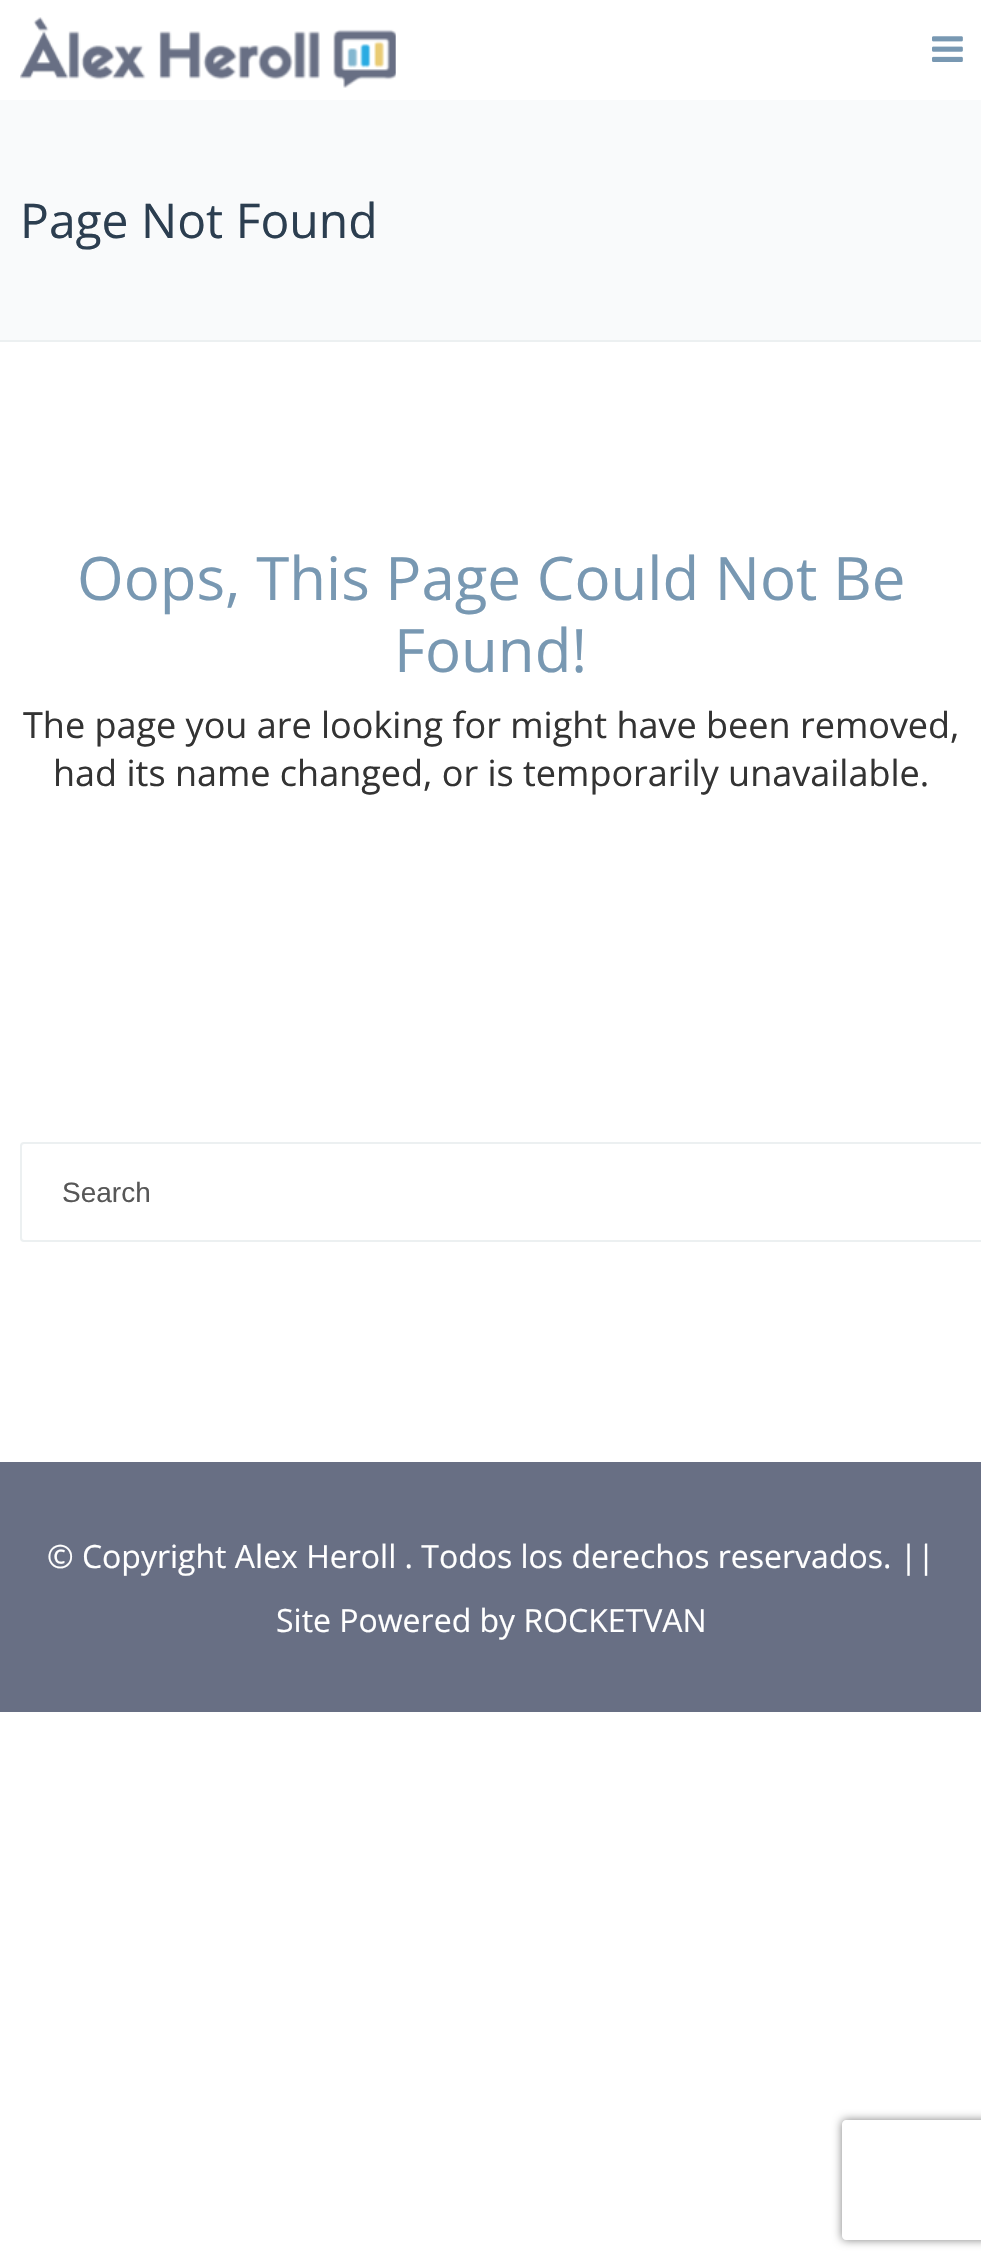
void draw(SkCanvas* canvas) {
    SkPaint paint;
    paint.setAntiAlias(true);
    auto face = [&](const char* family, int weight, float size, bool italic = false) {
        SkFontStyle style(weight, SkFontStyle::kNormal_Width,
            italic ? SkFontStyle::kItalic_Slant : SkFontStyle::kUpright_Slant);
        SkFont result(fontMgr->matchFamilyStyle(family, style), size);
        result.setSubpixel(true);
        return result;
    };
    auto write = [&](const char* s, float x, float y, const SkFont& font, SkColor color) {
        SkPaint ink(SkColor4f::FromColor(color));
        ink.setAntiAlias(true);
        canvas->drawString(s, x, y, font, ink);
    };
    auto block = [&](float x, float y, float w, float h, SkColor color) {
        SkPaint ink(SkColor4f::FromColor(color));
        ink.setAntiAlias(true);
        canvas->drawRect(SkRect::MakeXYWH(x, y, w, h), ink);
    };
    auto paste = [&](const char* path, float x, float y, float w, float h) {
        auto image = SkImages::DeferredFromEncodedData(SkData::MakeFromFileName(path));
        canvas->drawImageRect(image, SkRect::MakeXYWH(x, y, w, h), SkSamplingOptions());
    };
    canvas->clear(SK_ColorWHITE);
    paste("pic1.png", 20, 17, 376, 71);
    paste("pic2.png", 932, 36, 31, 26);
    block(0, 100, 981, 240, SkColorSetRGB(249, 250, 251));
    block(0, 340, 981, 2, SkColorSetRGB(236, 240, 241));
    auto kFont1 = face("Open Sans", 400, 48);
    write("Page Not Found", 20, 238, kFont1, SkColorSetRGB(44, 62, 80));
    auto kFont2 = face("Open Sans", 400, 60);
    write("Oops, This Page Could Not Be", 77, 600, kFont2, SkColorSetRGB(120, 152, 178));
    write("Found!", 394, 672, kFont2, SkColorSetRGB(120, 152, 178));
    auto kFont3 = face("Open Sans", 400, 36);
    write("The page you are looking for might have been removed,", 23, 738, kFont3, SkColorSetRGB(51, 51, 51));
    write("had its name changed, or is temporarily unavailable.", 53, 786, kFont3, SkColorSetRGB(51, 51, 51));
    paint.setStyle(SkPaint::kStroke_Style);
    paint.setStrokeWidth(2);
    paint.setColor(SkColorSetRGB(236, 240, 241));
    canvas->drawRoundRect(SkRect::MakeXYWH(21, 1143, 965, 98), 3, 3, paint);
    auto kFont4 = face("Liberation Sans", 400, 28);
    write("Search", 62, 1202, kFont4, SkColorSetRGB(87, 87, 87));
    block(0, 1462, 981, 250, SkColorSetRGB(104, 111, 132));
    auto kFont5 = face("Open Sans", 400, 32);
    write("© Copyright Alex Heroll . Todos los derechos reservados. ||", 47, 1568, kFont5, SK_ColorWHITE);
    write("Site Powered by ROCKETVAN", 276, 1632, kFont5, SK_ColorWHITE);
    canvas->save();
    canvas->clipPath(SkPathBuilder(SkPathFillType::kEvenOdd).moveTo(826, 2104).lineTo(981, 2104).lineTo(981, 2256).lineTo(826, 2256).close().moveTo(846, 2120).lineTo(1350, 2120).cubicTo(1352, 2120, 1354, 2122, 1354, 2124).lineTo(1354, 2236).cubicTo(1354, 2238, 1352, 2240, 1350, 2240).lineTo(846, 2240).cubicTo(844, 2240, 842, 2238, 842, 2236).lineTo(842, 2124).cubicTo(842, 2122, 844, 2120, 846, 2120).close().detach(), true);
    paint.setStyle(SkPaint::kFill_Style);
    paint.setColor(SkColorSetRGB(128, 128, 128));
    paint.setMaskFilter(SkMaskFilter::MakeBlur(kNormal_SkBlurStyle, 5));
    canvas->drawRoundRect(SkRect::MakeXYWH(842, 2120, 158, 120), 4, 4, paint);
    paint.setMaskFilter(nullptr);
    canvas->restore();
}
